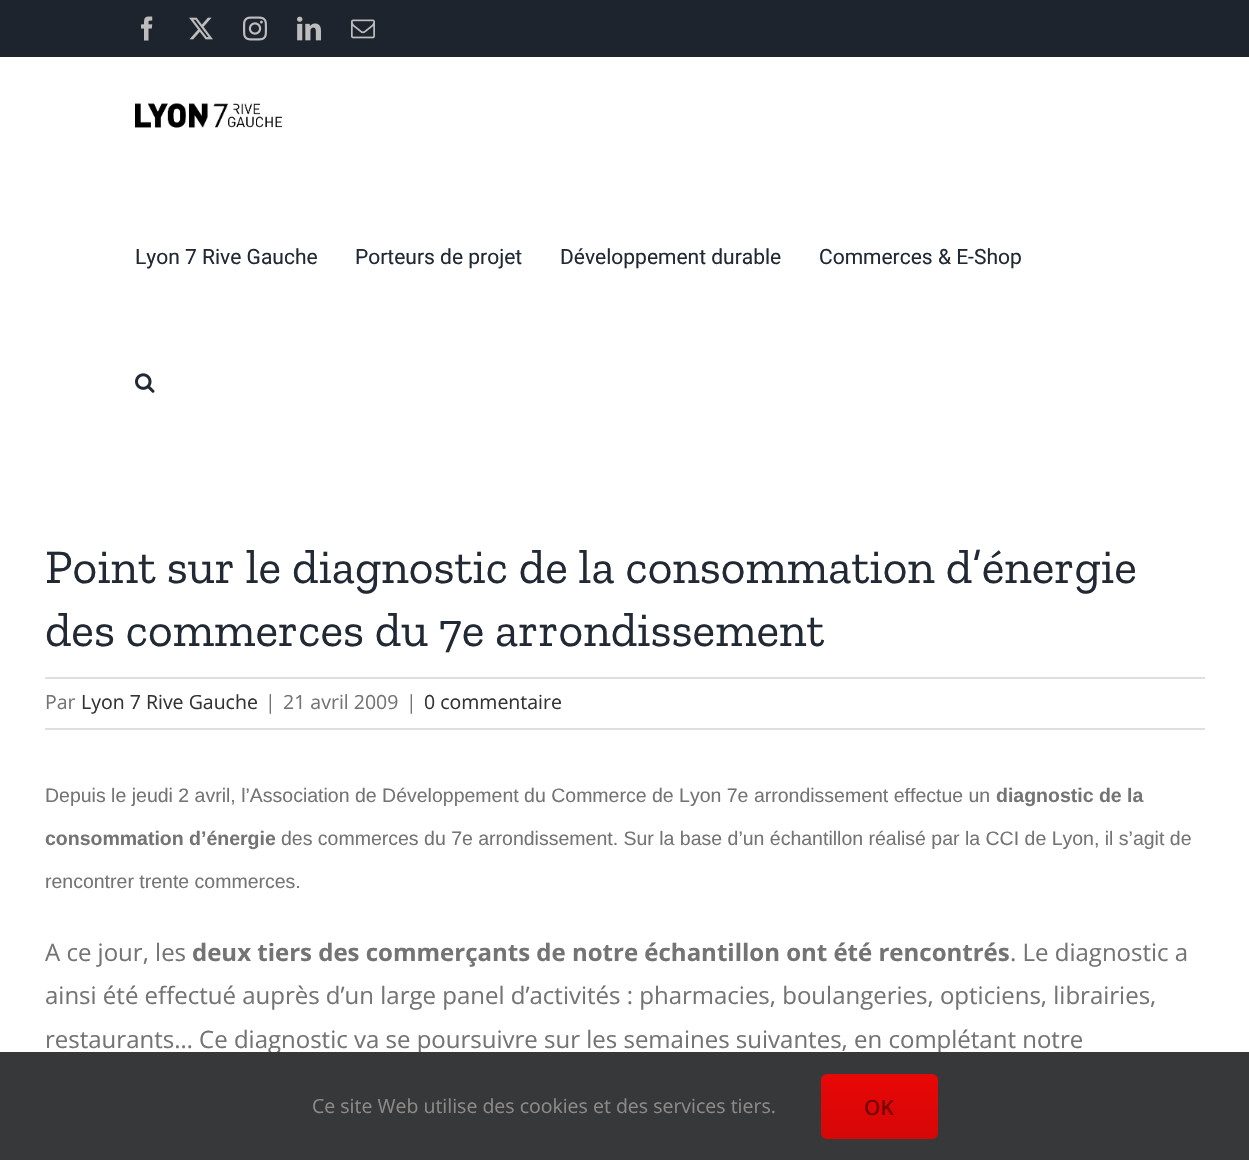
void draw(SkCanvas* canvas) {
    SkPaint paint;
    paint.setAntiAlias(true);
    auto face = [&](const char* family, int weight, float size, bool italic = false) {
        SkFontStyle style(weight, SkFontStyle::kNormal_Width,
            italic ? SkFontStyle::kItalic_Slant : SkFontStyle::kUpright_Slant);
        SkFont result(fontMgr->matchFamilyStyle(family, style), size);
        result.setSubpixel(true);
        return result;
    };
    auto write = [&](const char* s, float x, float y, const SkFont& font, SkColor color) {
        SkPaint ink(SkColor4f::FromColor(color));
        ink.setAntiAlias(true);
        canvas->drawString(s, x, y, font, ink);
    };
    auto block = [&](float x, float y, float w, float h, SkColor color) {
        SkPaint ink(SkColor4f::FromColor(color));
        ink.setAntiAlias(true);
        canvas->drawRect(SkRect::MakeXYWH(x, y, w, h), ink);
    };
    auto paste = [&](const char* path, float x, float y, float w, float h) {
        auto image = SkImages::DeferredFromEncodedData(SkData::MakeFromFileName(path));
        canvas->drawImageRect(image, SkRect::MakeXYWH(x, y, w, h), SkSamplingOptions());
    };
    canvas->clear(SK_ColorWHITE);
    block(0, 0, 1249, 57, SkColorSetRGB(29, 36, 45));
    paste("pic1.png", 141, 16, 12, 25);
    paste("pic2.png", 189, 17, 24, 23);
    paste("pic3.png", 243, 16, 24, 25);
    paste("pic4.png", 297, 16, 24, 25);
    paste("pic5.png", 351, 19, 24, 20);
    paste("pic6.png", 135, 103, 147, 25);
    auto kFont1 = face("Roboto", 400, 21);
    write("Lyon 7 Rive Gauche", 135, 264, kFont1, SkColorSetRGB(33, 41, 52));
    write("Porteurs de projet", 355, 264, kFont1, SkColorSetRGB(33, 41, 52));
    write("Développement durable", 560, 264, kFont1, SkColorSetRGB(33, 41, 52));
    write("Commerces & E-Shop", 819, 264, kFont1, SkColorSetRGB(33, 41, 52));
    paste("pic7.png", 135, 373, 20, 20);
    auto kFont2 = face("Zilla Slab", 400, 48);
    write("Point sur le diagnostic de la consommation d’énergie", 45, 583, kFont2, SkColorSetRGB(33, 41, 52));
    write("des commerces du 7e arrondissement", 45, 646, kFont2, SkColorSetRGB(33, 41, 52));
    block(45, 677, 1160, 2, SkColorSetRGB(224, 222, 222));
    block(45, 728, 1160, 2, SkColorSetRGB(224, 222, 222));
    auto kFont3 = face("Open Sans", 400, 19.5f);
    write("Par", 45, 709, kFont3, SkColorSetRGB(116, 116, 116));
    write("Lyon 7 Rive Gauche", 81, 709, kFont3, SkColorSetRGB(51, 51, 51));
    write("|", 265, 709, kFont3, SkColorSetRGB(116, 116, 116));
    write("21 avril 2009", 283, 709, kFont3, SkColorSetRGB(116, 116, 116));
    write("|", 406, 709, kFont3, SkColorSetRGB(116, 116, 116));
    write("0 commentaire", 424, 709, kFont3, SkColorSetRGB(51, 51, 51));
    auto kFont4 = face("Liberation Sans", 400, 19.5f);
    write("Depuis le jeudi 2 avril, l’Association de Développement du Commerce de Lyon 7e arrondissement effectue un", 45, 802, kFont4, SkColorSetRGB(116, 116, 116));
    auto kFont5 = face("Liberation Sans", 700, 19.5f);
    write("diagnostic de la", 996, 802, kFont5, SkColorSetRGB(116, 116, 116));
    write("consommation d’énergie", 45, 845, kFont5, SkColorSetRGB(116, 116, 116));
    write("des commerces du 7e arrondissement. Sur la base d’un échantillon réalisé par la CCI de Lyon, il s’agit de", 281, 845, kFont4, SkColorSetRGB(116, 116, 116));
    write("rencontrer trente commerces.", 45, 888, kFont4, SkColorSetRGB(116, 116, 116));
    auto kFont6 = face("Open Sans", 400, 24);
    write("A ce jour, les", 45, 961, kFont6, SkColorSetRGB(116, 116, 116));
    auto kFont7 = face("Open Sans", 700, 24);
    write("deux tiers des commerçants de notre échantillon ont été rencontrés", 192, 961, kFont7, SkColorSetRGB(116, 116, 116));
    write(". Le diagnostic a", 1010, 961, kFont6, SkColorSetRGB(116, 116, 116));
    write("ainsi été effectué auprès d’un large panel d’activités : pharmacies, boulangeries, opticiens, librairies,", 45, 1004, kFont6, SkColorSetRGB(116, 116, 116));
    write("restaurants… Ce diagnostic va se poursuivre sur les semaines suivantes, en complétant notre", 45, 1048, kFont6, SkColorSetRGB(116, 116, 116));
    block(0, 1052, 1249, 108, SkColorSetRGB(54, 56, 57));
    write("Ce site Web utilise des cookies et des services tiers.", 312, 1113, kFont3, SkColorSetRGB(140, 137, 137));
    {
        const SkColor colors[] = {SkColorSetRGB(232, 7, 7), SkColorSetRGB(214, 7, 7)};
        const float stops[] = {0, 1};
        const SkPoint ends[] = {{879, 1074}, {879, 1139}};
        paint.setShader(SkGradientShader::MakeLinear(ends, colors, stops, 2, SkTileMode::kClamp));
        paint.setAlpha(255);
    }
    canvas->drawRoundRect(SkRect::MakeXYWH(821, 1074, 117, 65), 6, 6, paint);
    auto kFont8 = face("Open Sans", 600, 21);
    write("OK", 864, 1115, kFont8, SkColorSetRGB(120, 4, 4));
}
